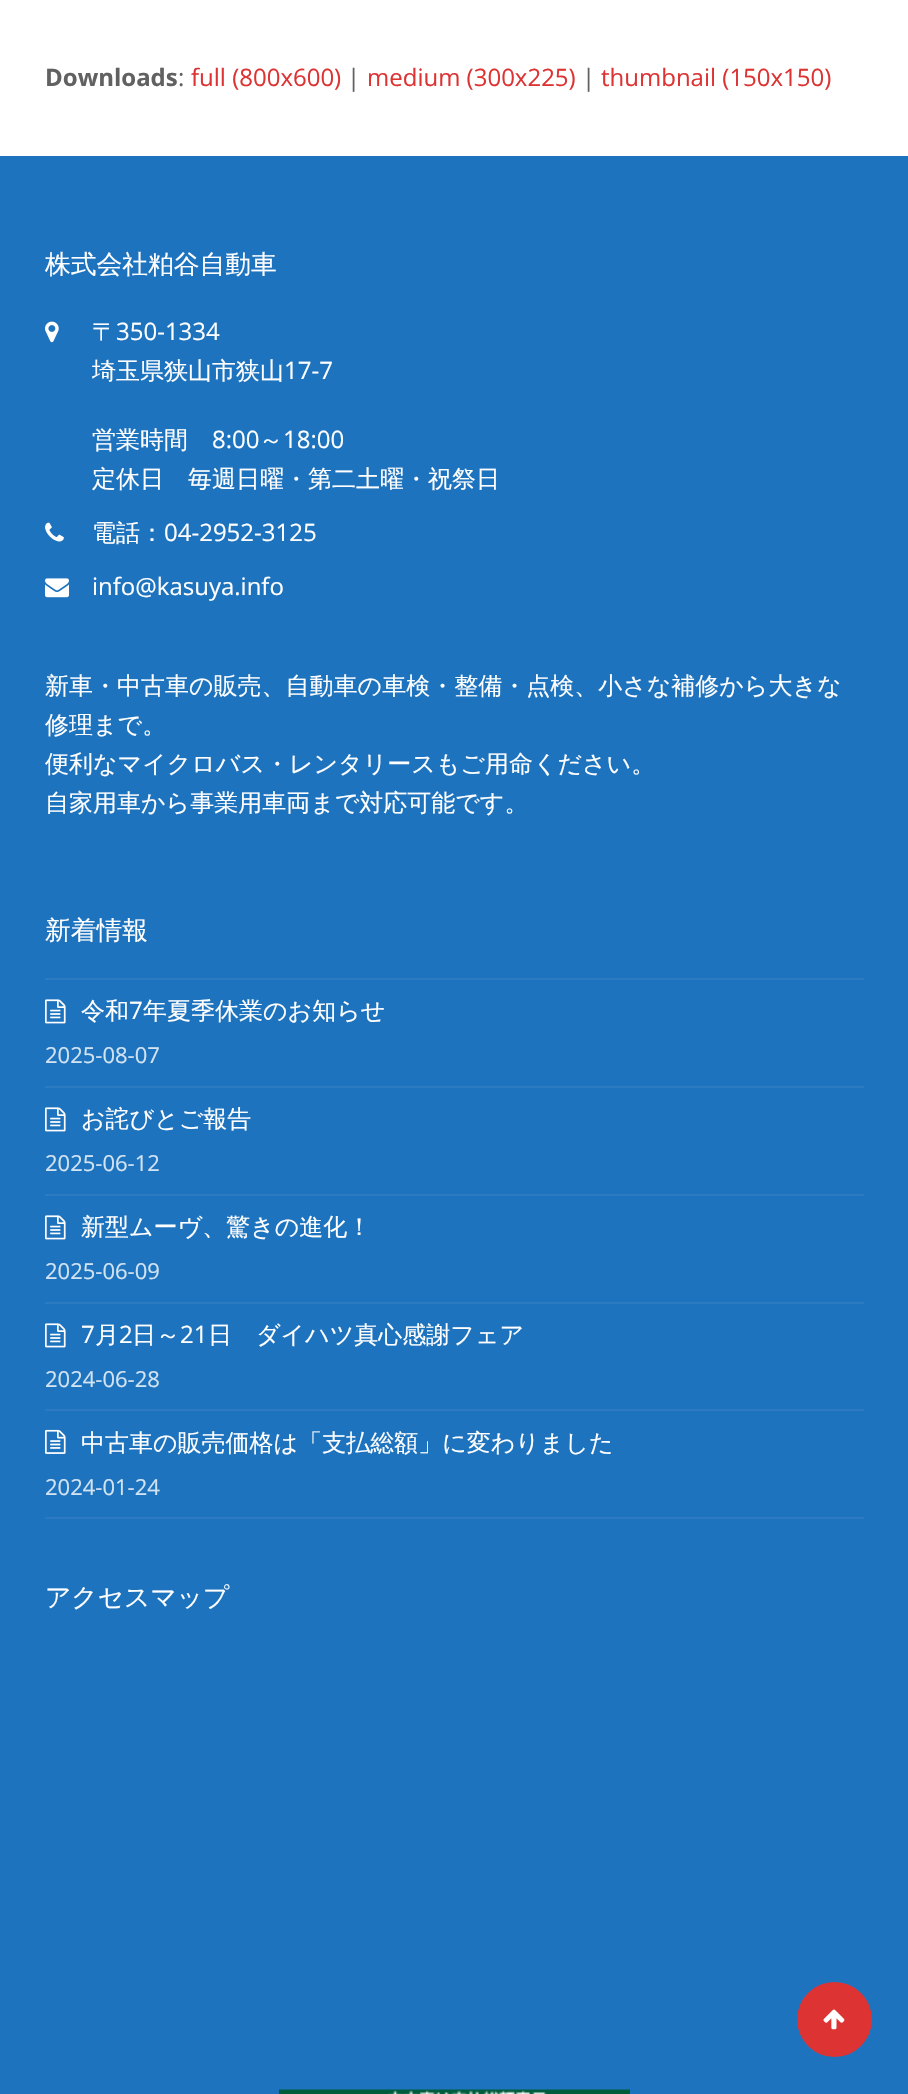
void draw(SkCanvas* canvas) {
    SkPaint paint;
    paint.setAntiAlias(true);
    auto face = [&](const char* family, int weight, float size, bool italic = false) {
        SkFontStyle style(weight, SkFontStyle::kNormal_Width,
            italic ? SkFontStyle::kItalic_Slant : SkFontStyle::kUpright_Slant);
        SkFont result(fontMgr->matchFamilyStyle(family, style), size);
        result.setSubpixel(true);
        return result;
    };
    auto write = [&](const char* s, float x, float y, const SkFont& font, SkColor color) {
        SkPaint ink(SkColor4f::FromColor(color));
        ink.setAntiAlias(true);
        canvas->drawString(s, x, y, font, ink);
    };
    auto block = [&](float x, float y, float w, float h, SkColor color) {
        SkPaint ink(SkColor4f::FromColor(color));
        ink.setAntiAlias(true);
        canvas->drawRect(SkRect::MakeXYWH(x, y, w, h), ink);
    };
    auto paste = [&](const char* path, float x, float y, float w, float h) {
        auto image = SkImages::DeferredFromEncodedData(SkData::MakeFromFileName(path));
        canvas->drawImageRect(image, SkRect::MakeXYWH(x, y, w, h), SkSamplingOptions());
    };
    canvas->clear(SK_ColorWHITE);
    auto kFont1 = face("Open Sans", 700, 24);
    write("Downloads", 45, 86, kFont1, SkColorSetRGB(97, 97, 97));
    auto kFont2 = face("Open Sans", 400, 24);
    write(":", 178, 86, kFont2, SkColorSetRGB(97, 97, 97));
    write("full (800x600)", 191, 86, kFont2, SkColorSetRGB(221, 51, 51));
    write("|", 347, 86, kFont2, SkColorSetRGB(97, 97, 97));
    write("medium (300x225)", 367, 86, kFont2, SkColorSetRGB(221, 51, 51));
    write("|", 582, 86, kFont2, SkColorSetRGB(97, 97, 97));
    write("thumbnail (150x150)", 601, 86, kFont2, SkColorSetRGB(221, 51, 51));
    block(0, 156, 908, 1938, SkColorSetRGB(30, 115, 190));
    auto kFont3 = face("WenQuanYi Zen Hei", 500, 25.75f);
    write("株式会社粕谷自動車", 45, 273, kFont3, SK_ColorWHITE);
    paste("pic1.png", 45, 321, 14, 22);
    auto kFont4 = face("WenQuanYi Zen Hei", 500, 24);
    write("〒", 92, 340, kFont4, SK_ColorWHITE);
    write("350-1334", 116, 340, kFont2, SK_ColorWHITE);
    write("埼玉県狭山市狭山", 92, 379, kFont4, SK_ColorWHITE);
    write("17-7", 284, 379, kFont2, SK_ColorWHITE);
    write("営業時間", 92, 448, kFont4, SK_ColorWHITE);
    write("8:00", 212, 448, kFont2, SK_ColorWHITE);
    write("～", 259, 448, kFont4, SK_ColorWHITE);
    write("18:00", 283, 448, kFont2, SK_ColorWHITE);
    write("定休日　毎週日曜・第二土曜・祝祭日", 92, 487, kFont4, SK_ColorWHITE);
    paste("pic2.png", 45, 522, 19, 20);
    write("電話：", 92, 541, kFont4, SK_ColorWHITE);
    write("04-2952-3125", 164, 541, kFont2, SK_ColorWHITE);
    paste("pic3.png", 45, 578, 24, 20);
    write("info@kasuya.info", 92, 595, kFont2, SK_ColorWHITE);
    write("新車・中古車の販売、自動車の車検・整備・点検、小さな補修から大きな", 45, 694, kFont4, SK_ColorWHITE);
    write("修理まで。", 45, 733, kFont4, SK_ColorWHITE);
    write("便利なマイクロバス・レンタリースもご用命ください。", 45, 772, kFont4, SK_ColorWHITE);
    write("自家用車から事業用車両まで対応可能です。", 45, 811, kFont4, SK_ColorWHITE);
    write("新着情報", 45, 939, kFont3, SK_ColorWHITE);
    block(45, 978, 819, 2, SkColorSetRGB(44, 123, 194));
    block(45, 1086, 819, 2, SkColorSetRGB(44, 123, 194));
    paste("pic4.png", 45, 999, 21, 25);
    write("令和", 81, 1019, kFont4, SK_ColorWHITE);
    write("7", 129, 1019, kFont2, SK_ColorWHITE);
    write("年夏季休業のお知らせ", 143, 1019, kFont4, SK_ColorWHITE);
    auto kFont5 = face("Open Sans", 400, 22);
    write("2025-08-07", 45, 1063, kFont5, SkColorSetRGB(210, 227, 242));
    block(45, 1194, 819, 2, SkColorSetRGB(44, 123, 194));
    paste("pic4.png", 45, 1107, 21, 25);
    write("お詫びとご報告", 81, 1127, kFont4, SK_ColorWHITE);
    write("2025-06-12", 45, 1171, kFont5, SkColorSetRGB(210, 227, 242));
    block(45, 1302, 819, 2, SkColorSetRGB(44, 123, 194));
    paste("pic4.png", 45, 1215, 21, 25);
    write("新型ムーヴ、驚きの進化！", 81, 1235, kFont4, SK_ColorWHITE);
    write("2025-06-09", 45, 1279, kFont5, SkColorSetRGB(210, 227, 242));
    block(45, 1409, 819, 2, SkColorSetRGB(44, 123, 194));
    paste("pic4.png", 45, 1323, 21, 25);
    write("7", 81, 1343, kFont2, SK_ColorWHITE);
    write("月", 95, 1343, kFont4, SK_ColorWHITE);
    write("2", 119, 1343, kFont2, SK_ColorWHITE);
    write("日～", 132, 1343, kFont4, SK_ColorWHITE);
    write("21", 180, 1343, kFont2, SK_ColorWHITE);
    write("日　ダイハツ真心感謝フェア", 208, 1343, kFont4, SK_ColorWHITE);
    write("2024-06-28", 45, 1387, kFont5, SkColorSetRGB(210, 227, 242));
    block(45, 1517, 819, 2, SkColorSetRGB(44, 123, 194));
    paste("pic5.png", 45, 1429, 21, 25);
    write("中古車の販売価格は「支払総額」に変わりました", 81, 1451, kFont4, SK_ColorWHITE);
    write("2024-01-24", 45, 1495, kFont5, SkColorSetRGB(210, 227, 242));
    write("アクセスマップ", 45, 1606, kFont3, SK_ColorWHITE);
    paste("pic6.png", 279, 2089, 351, 5);
    paint.setColor(SkColorSetRGB(221, 51, 51));
    canvas->drawCircle(834.5f, 2019.5f, 37.5f, paint);
    paste("pic7.png", 823, 2009, 22, 21);
}
